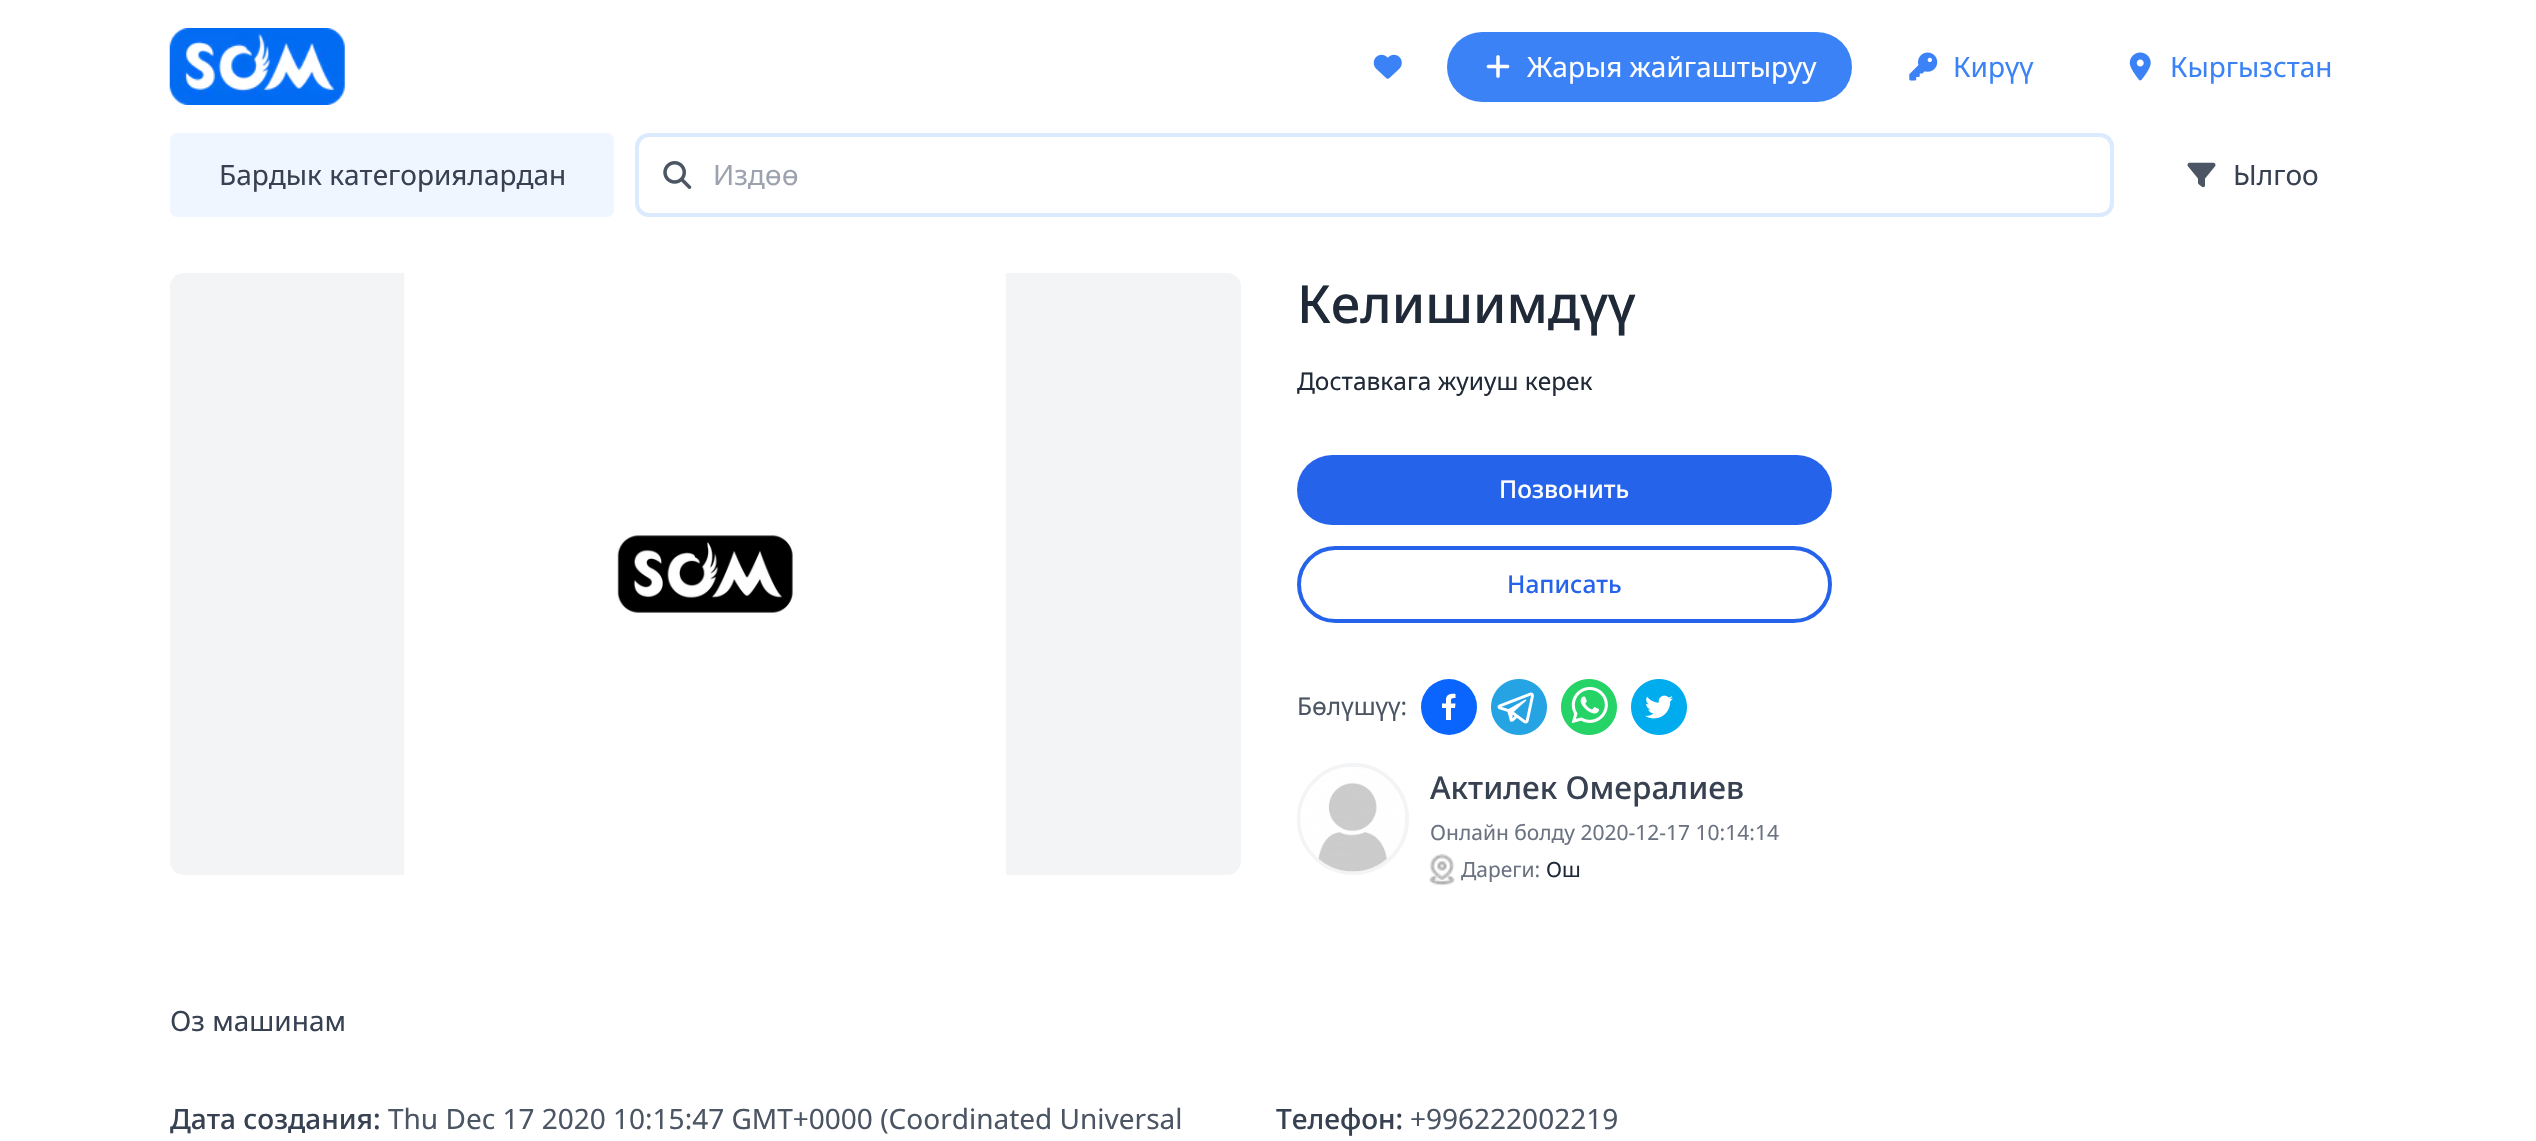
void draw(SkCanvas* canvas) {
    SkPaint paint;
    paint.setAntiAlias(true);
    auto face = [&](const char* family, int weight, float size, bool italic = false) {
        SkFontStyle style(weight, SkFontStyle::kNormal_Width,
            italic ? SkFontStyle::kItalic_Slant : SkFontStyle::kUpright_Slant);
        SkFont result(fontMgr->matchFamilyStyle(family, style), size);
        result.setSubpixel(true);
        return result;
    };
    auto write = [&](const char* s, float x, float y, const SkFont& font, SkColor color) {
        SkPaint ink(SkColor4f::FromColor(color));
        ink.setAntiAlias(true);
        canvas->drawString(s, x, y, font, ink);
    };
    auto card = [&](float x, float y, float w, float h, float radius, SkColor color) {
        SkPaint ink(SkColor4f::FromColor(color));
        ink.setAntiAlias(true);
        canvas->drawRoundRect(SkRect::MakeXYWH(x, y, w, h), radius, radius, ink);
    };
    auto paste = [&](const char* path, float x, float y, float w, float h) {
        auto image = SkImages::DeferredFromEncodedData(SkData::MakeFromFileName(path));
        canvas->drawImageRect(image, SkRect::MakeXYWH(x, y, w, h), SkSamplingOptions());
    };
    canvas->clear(SK_ColorWHITE);
    paste("pic1.png", 169, 28, 176, 77);
    paste("pic2.png", 1373, 54, 29, 25);
    card(1447, 32, 405, 70, 35, SkColorSetRGB(59, 130, 246));
    paste("pic3.png", 1486, 55, 24, 23);
    auto kFont1 = face("Noto Sans", 400, 28);
    write("Жарыя жайгаштыруу", 1527, 77, kFont1, SK_ColorWHITE);
    paste("pic4.png", 1909, 52, 29, 29);
    write("Кирүү", 1953, 77, kFont1, SkColorSetRGB(59, 130, 246));
    paste("pic5.png", 2129, 52, 22, 29);
    write("Кыргызстан", 2170, 77, kFont1, SkColorSetRGB(59, 130, 246));
    card(170, 133, 444, 84, 7, SkColorSetRGB(239, 246, 255));
    write("Бардык категориялардан", 219, 185, kFont1, SkColorSetRGB(55, 65, 81));
    paint.setStyle(SkPaint::kStroke_Style);
    paint.setStrokeWidth(4);
    paint.setColor(SkColorSetRGB(219, 234, 254));
    canvas->drawRoundRect(SkRect::MakeXYWH(637, 135, 1475, 80), 12, 12, paint);
    paste("pic6.png", 663, 161, 29, 28);
    write("Издөө", 713, 185, kFont1, SkColorSetRGB(156, 163, 175));
    paste("pic7.png", 2187, 162, 29, 26);
    write("Ылгоо", 2233, 185, kFont1, SkColorSetRGB(55, 65, 81));
    card(170, 273, 1071, 602, 14, SkColorSetRGB(243, 244, 246));
    paste("pic8.png", 404, 273, 602, 602);
    auto kFont2 = face("Noto Sans", 500, 52.5f);
    write("Келишимдүү", 1297, 323, kFont2, SkColorSetRGB(31, 41, 55));
    auto kFont3 = face("Noto Sans", 400, 24.5f);
    write("Доставкага жуиуш керек", 1297, 390, kFont3, SkColorSetRGB(31, 41, 55));
    card(1297, 455, 535, 70, 35, SkColorSetRGB(37, 99, 235));
    auto kFont4 = face("Noto Sans", 500, 24.5f);
    write("Позвонить", 1499, 498, kFont4, SK_ColorWHITE);
    paint.setColor(SkColorSetRGB(37, 99, 235));
    canvas->drawRoundRect(SkRect::MakeXYWH(1299, 548, 531, 73), 36.5f, 36.5f, paint);
    write("Написать", 1507, 593, kFont4, SkColorSetRGB(37, 99, 235));
    write("Бөлүшүү:", 1297, 715, kFont3, SkColorSetRGB(75, 85, 99));
    paint.setStyle(SkPaint::kFill_Style);
    paint.setColor(SkColorSetRGB(9, 101, 254));
    canvas->drawCircle(1449, 707, 28, paint);
    paint.setColor(SK_ColorWHITE);
    canvas->drawPath(SkPathBuilder().moveTo(1451, 720).lineTo(1451, 708).lineTo(1455, 708).lineTo(1455.5f, 703.5f).lineTo(1451, 703.5f).cubicTo(1451, 698.5f, 1450.5f, 698, 1455.5f, 698).lineTo(1455.5f, 694).cubicTo(1451.5f, 693.5f, 1447, 694, 1446, 698.5f).lineTo(1446, 703.5f).lineTo(1442, 703.5f).lineTo(1442, 708).lineTo(1446, 708).lineTo(1446, 720).close().detach(), paint);
    paste("pic9.png", 1491, 679, 56, 56);
    paste("pic10.png", 1561, 679, 56, 56);
    paste("pic11.png", 1631, 679, 56, 56);
    paint.setStyle(SkPaint::kStroke_Style);
    paint.setColor(SkColorSetRGB(243, 244, 246));
    canvas->drawCircle(1353, 819, 54, paint);
    paste("pic12.png", 1300, 767, 105, 105);
    auto kFont5 = face("Noto Sans", 500, 31.5f);
    write("Актилек Омералиев", 1430, 799, kFont5, SkColorSetRGB(55, 65, 81));
    auto kFont6 = face("Noto Sans", 400, 21);
    write("Онлайн болду 2020-12-17 10:14:14", 1430, 840, kFont6, SkColorSetRGB(107, 114, 128));
    paste("pic13.png", 1429, 854, 26, 32);
    write("Дареги:", 1461, 877, kFont6, SkColorSetRGB(107, 114, 128));
    write("Ош", 1546, 877, kFont6, SkColorSetRGB(31, 41, 55));
    write("Оз машинам", 170, 1031, kFont1, SkColorSetRGB(55, 65, 81));
    auto kFont7 = face("Noto Sans", 500, 28);
    write("Дата создания:", 170, 1129, kFont7, SkColorSetRGB(55, 65, 81));
    write("Thu Dec 17 2020 10:15:47 GMT+0000 (Coordinated Universal", 388, 1129, kFont1, SkColorSetRGB(75, 85, 99));
    write("Телефон:", 1276, 1129, kFont7, SkColorSetRGB(55, 65, 81));
    write("+996222002219", 1410, 1129, kFont1, SkColorSetRGB(75, 85, 99));
}
